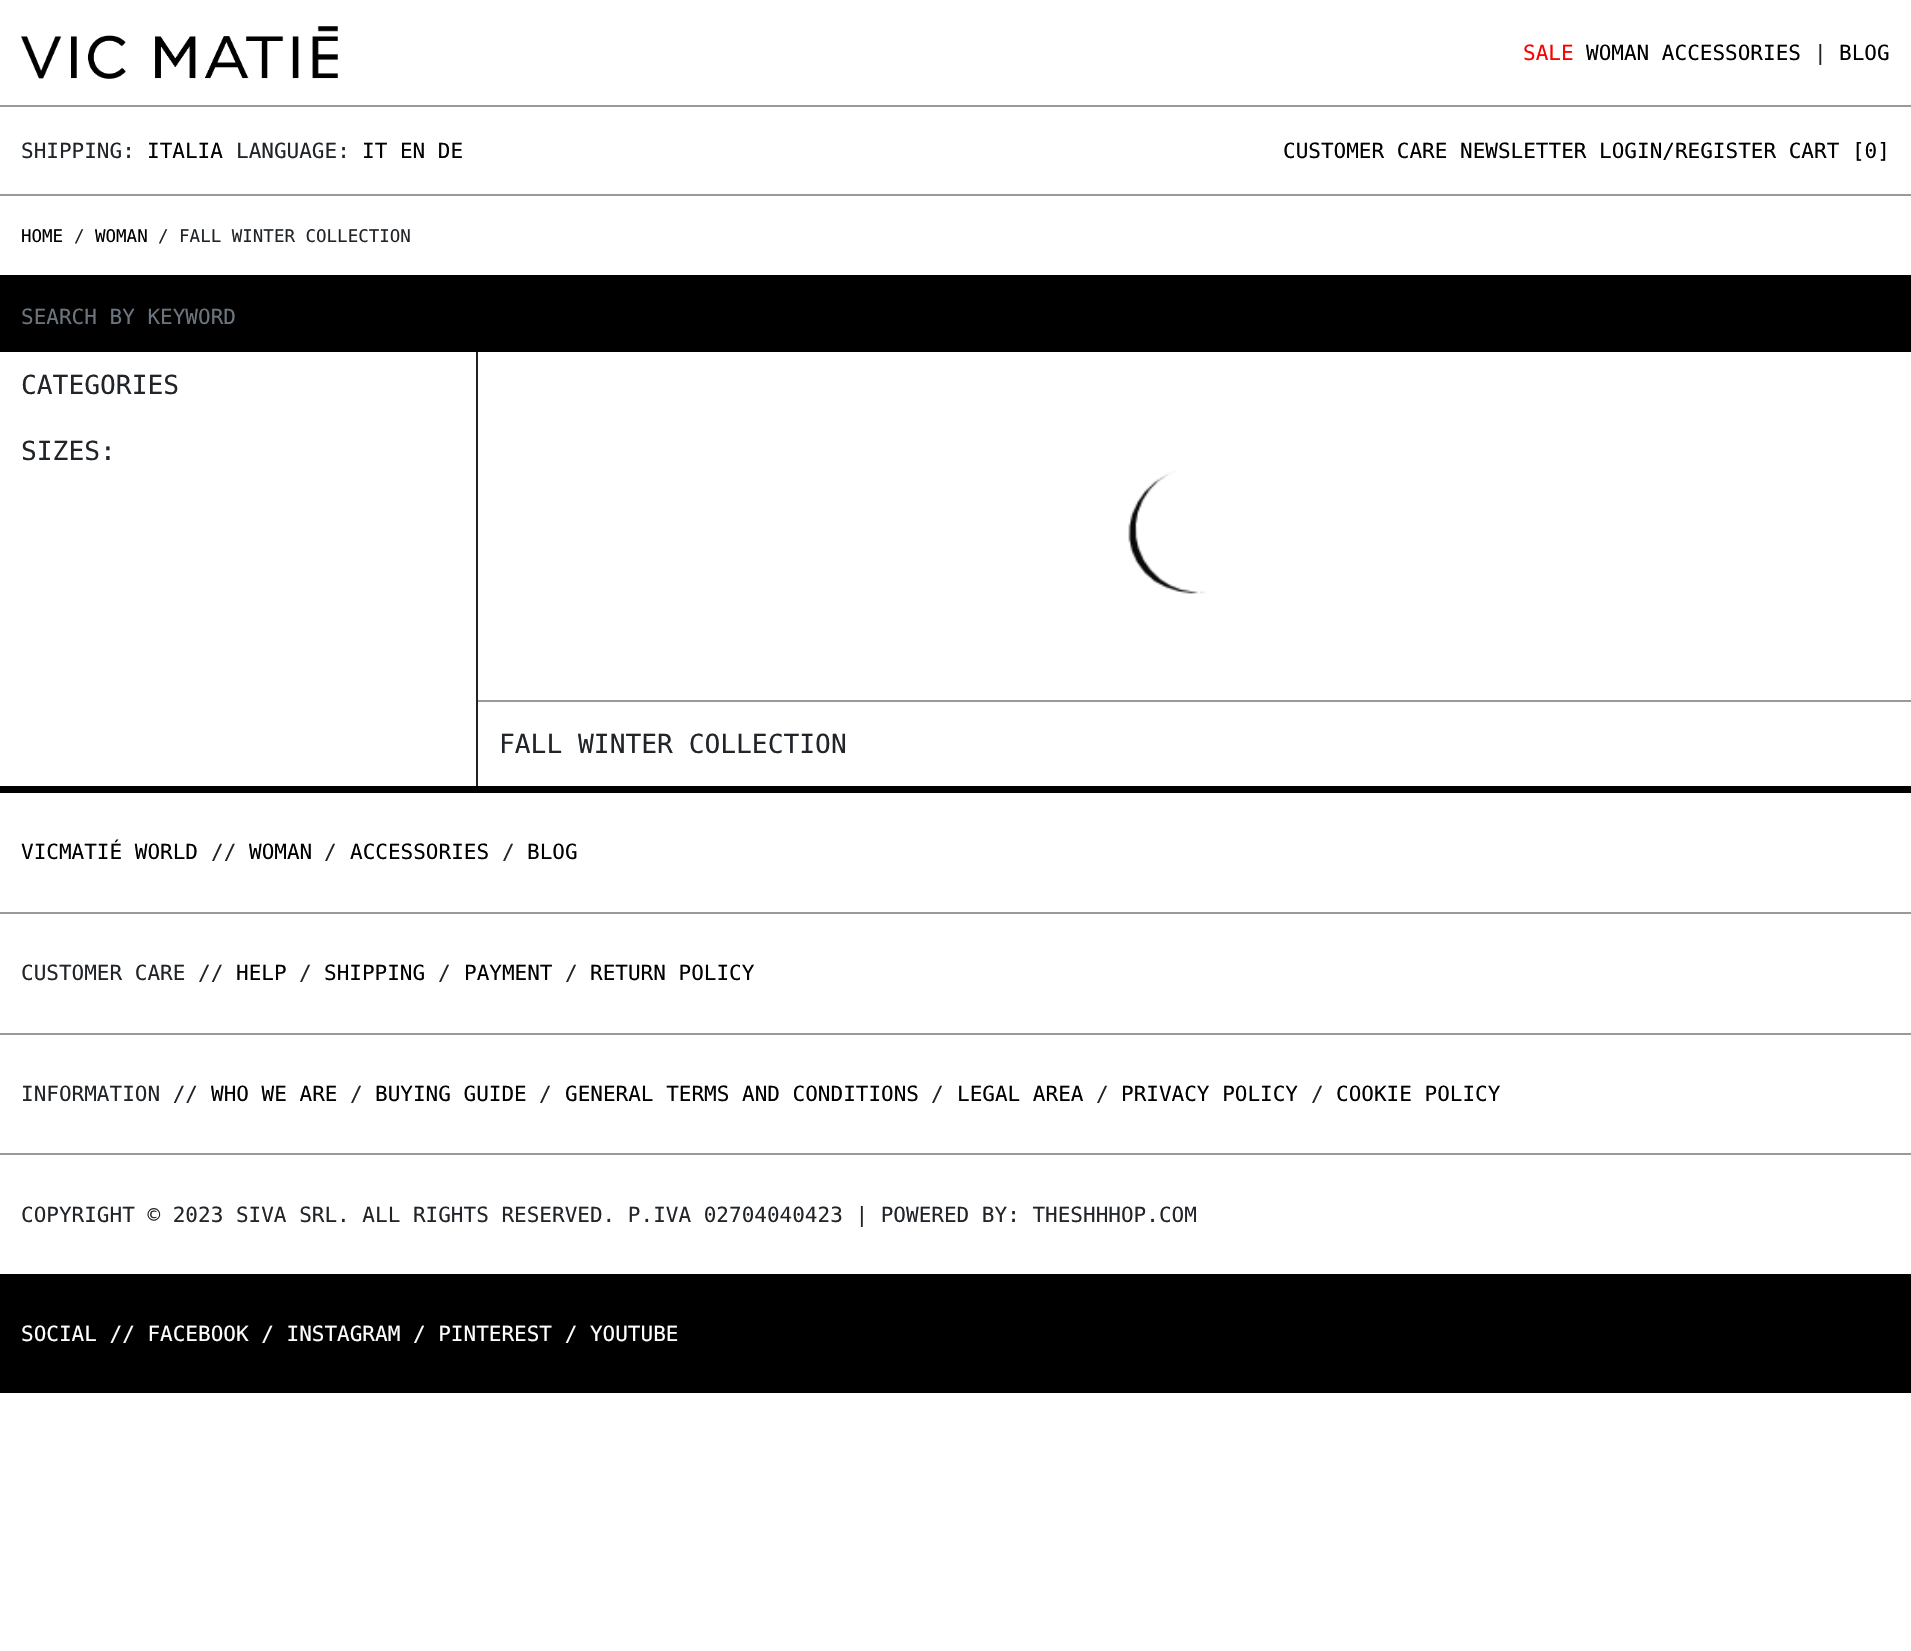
void draw(SkCanvas* canvas) {
    SkPaint paint;
    paint.setAntiAlias(true);
    auto face = [&](const char* family, int weight, float size, bool italic = false) {
        SkFontStyle style(weight, SkFontStyle::kNormal_Width,
            italic ? SkFontStyle::kItalic_Slant : SkFontStyle::kUpright_Slant);
        SkFont result(fontMgr->matchFamilyStyle(family, style), size);
        result.setSubpixel(true);
        return result;
    };
    auto write = [&](const char* s, float x, float y, const SkFont& font, SkColor color) {
        SkPaint ink(SkColor4f::FromColor(color));
        ink.setAntiAlias(true);
        canvas->drawString(s, x, y, font, ink);
    };
    auto block = [&](float x, float y, float w, float h, SkColor color) {
        SkPaint ink(SkColor4f::FromColor(color));
        ink.setAntiAlias(true);
        canvas->drawRect(SkRect::MakeXYWH(x, y, w, h), ink);
    };
    auto paste = [&](const char* path, float x, float y, float w, float h) {
        auto image = SkImages::DeferredFromEncodedData(SkData::MakeFromFileName(path));
        canvas->drawImageRect(image, SkRect::MakeXYWH(x, y, w, h), SkSamplingOptions());
    };
    canvas->clear(SK_ColorWHITE);
    block(0, 105, 1911, 2, SkColorSetRGB(153, 153, 153));
    paste("pic1.png", 21, 26, 317, 53);
    auto kFont1 = face("DejaVu Sans Mono", 400, 21);
    write("SALE", 1523, 60, kFont1, SkColorSetRGB(255, 0, 0));
    write("WOMAN ACCESSORIES", 1586, 60, kFont1, SK_ColorBLACK);
    write("|", 1814, 60, kFont1, SkColorSetRGB(33, 37, 41));
    write("BLOG", 1839, 60, kFont1, SK_ColorBLACK);
    block(0, 194, 1911, 2, SkColorSetRGB(153, 153, 153));
    write("SHIPPING:", 21, 158, kFont1, SkColorSetRGB(33, 37, 41));
    write("ITALIA", 147, 158, kFont1, SK_ColorBLACK);
    write("LANGUAGE:", 236, 158, kFont1, SkColorSetRGB(33, 37, 41));
    write("IT EN DE", 362, 158, kFont1, SK_ColorBLACK);
    write("CUSTOMER CARE NEWSLETTER LOGIN/REGISTER CART [0]", 1283, 158, kFont1, SK_ColorBLACK);
    block(0, 275, 1911, 77, SK_ColorBLACK);
    auto kFont2 = face("DejaVu Sans Mono", 400, 17.5f);
    write("HOME", 21, 242, kFont2, SK_ColorBLACK);
    write("/", 74, 242, kFont2, SkColorSetRGB(33, 37, 41));
    write("WOMAN", 95, 242, kFont2, SK_ColorBLACK);
    write("/ FALL WINTER COLLECTION", 158, 242, kFont2, SkColorSetRGB(33, 37, 41));
    write("SEARCH BY KEYWORD", 21, 324, kFont1, SkColorSetRGB(108, 117, 125));
    block(476, 352, 2, 434, SkColorSetRGB(34, 34, 34));
    auto kFont3 = face("DejaVu Sans Mono", 400, 26.25f);
    write("CATEGORIES", 21, 394, kFont3, SkColorSetRGB(33, 37, 41));
    write("SIZES:", 21, 460, kFont3, SkColorSetRGB(33, 37, 41));
    paste("pic2.png", 1128, 471, 78, 123);
    block(478, 700, 1433, 2, SkColorSetRGB(153, 153, 153));
    write("FALL WINTER COLLECTION", 499, 753, kFont3, SkColorSetRGB(33, 37, 41));
    block(0, 786, 1911, 7, SK_ColorBLACK);
    block(0, 912, 1911, 2, SkColorSetRGB(153, 153, 153));
    write("VICMATIÉ WORLD", 21, 859, kFont1, SK_ColorBLACK);
    write("//", 211, 859, kFont1, SkColorSetRGB(33, 37, 41));
    write("WOMAN", 249, 859, kFont1, SK_ColorBLACK);
    write("/", 324, 859, kFont1, SkColorSetRGB(33, 37, 41));
    write("ACCESSORIES", 350, 859, kFont1, SK_ColorBLACK);
    write("/", 502, 859, kFont1, SkColorSetRGB(33, 37, 41));
    write("BLOG", 527, 859, kFont1, SK_ColorBLACK);
    block(0, 1033, 1911, 2, SkColorSetRGB(153, 153, 153));
    write("CUSTOMER CARE //", 21, 980, kFont1, SkColorSetRGB(33, 37, 41));
    write("HELP", 236, 980, kFont1, SK_ColorBLACK);
    write("/", 299, 980, kFont1, SkColorSetRGB(33, 37, 41));
    write("SHIPPING", 324, 980, kFont1, SK_ColorBLACK);
    write("/", 438, 980, kFont1, SkColorSetRGB(33, 37, 41));
    write("PAYMENT", 464, 980, kFont1, SK_ColorBLACK);
    write("/", 565, 980, kFont1, SkColorSetRGB(33, 37, 41));
    write("RETURN POLICY", 590, 980, kFont1, SK_ColorBLACK);
    block(0, 1153, 1911, 2, SkColorSetRGB(153, 153, 153));
    write("INFORMATION //", 21, 1101, kFont1, SkColorSetRGB(33, 37, 41));
    write("WHO WE ARE", 211, 1101, kFont1, SK_ColorBLACK);
    write("/", 350, 1101, kFont1, SkColorSetRGB(33, 37, 41));
    write("BUYING GUIDE", 375, 1101, kFont1, SK_ColorBLACK);
    write("/", 539, 1101, kFont1, SkColorSetRGB(33, 37, 41));
    write("GENERAL TERMS AND CONDITIONS", 565, 1101, kFont1, SK_ColorBLACK);
    write("/", 931, 1101, kFont1, SkColorSetRGB(33, 37, 41));
    write("LEGAL AREA", 957, 1101, kFont1, SK_ColorBLACK);
    write("/", 1096, 1101, kFont1, SkColorSetRGB(33, 37, 41));
    write("PRIVACY POLICY", 1121, 1101, kFont1, SK_ColorBLACK);
    write("/", 1311, 1101, kFont1, SkColorSetRGB(33, 37, 41));
    write("COOKIE POLICY", 1336, 1101, kFont1, SK_ColorBLACK);
    write("COPYRIGHT © 2023 SIVA SRL. ALL RIGHTS RESERVED. P.IVA 02704040423 | POWERED BY: THESHHHOP.COM", 21, 1222, kFont1, SkColorSetRGB(33, 37, 41));
    block(0, 1274, 1911, 119, SK_ColorBLACK);
    write("SOCIAL // FACEBOOK / INSTAGRAM / PINTEREST / YOUTUBE", 21, 1341, kFont1, SK_ColorWHITE);
}
